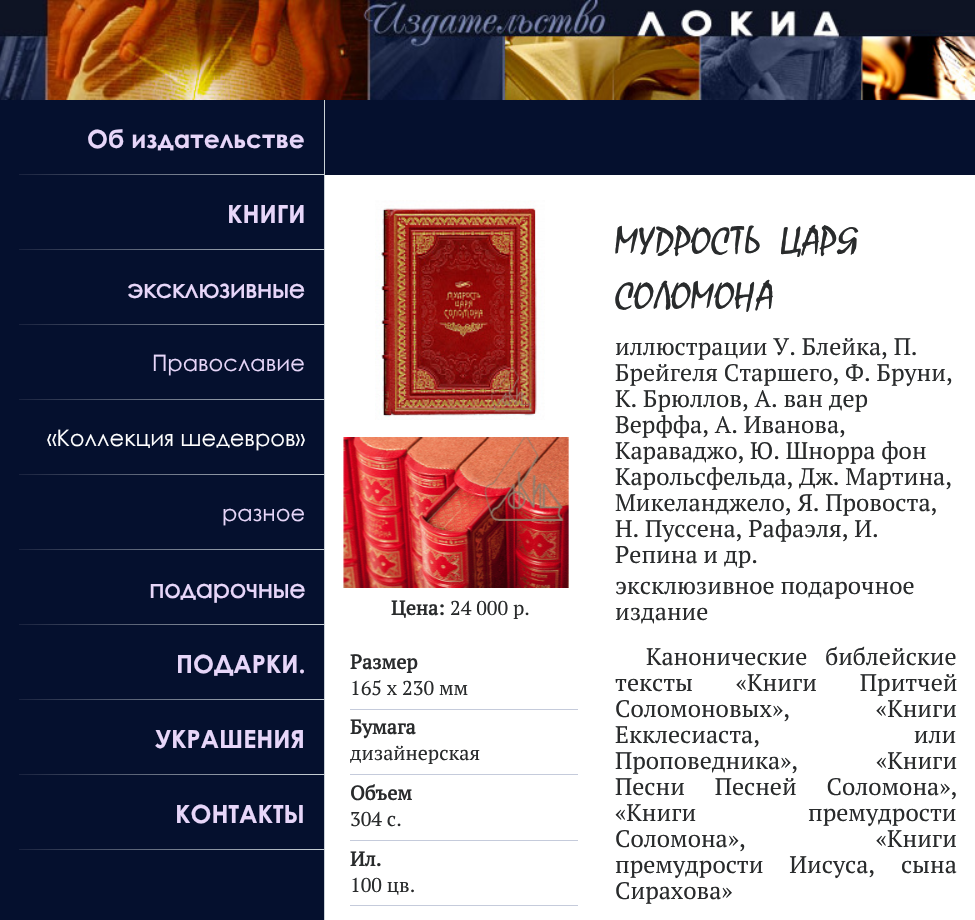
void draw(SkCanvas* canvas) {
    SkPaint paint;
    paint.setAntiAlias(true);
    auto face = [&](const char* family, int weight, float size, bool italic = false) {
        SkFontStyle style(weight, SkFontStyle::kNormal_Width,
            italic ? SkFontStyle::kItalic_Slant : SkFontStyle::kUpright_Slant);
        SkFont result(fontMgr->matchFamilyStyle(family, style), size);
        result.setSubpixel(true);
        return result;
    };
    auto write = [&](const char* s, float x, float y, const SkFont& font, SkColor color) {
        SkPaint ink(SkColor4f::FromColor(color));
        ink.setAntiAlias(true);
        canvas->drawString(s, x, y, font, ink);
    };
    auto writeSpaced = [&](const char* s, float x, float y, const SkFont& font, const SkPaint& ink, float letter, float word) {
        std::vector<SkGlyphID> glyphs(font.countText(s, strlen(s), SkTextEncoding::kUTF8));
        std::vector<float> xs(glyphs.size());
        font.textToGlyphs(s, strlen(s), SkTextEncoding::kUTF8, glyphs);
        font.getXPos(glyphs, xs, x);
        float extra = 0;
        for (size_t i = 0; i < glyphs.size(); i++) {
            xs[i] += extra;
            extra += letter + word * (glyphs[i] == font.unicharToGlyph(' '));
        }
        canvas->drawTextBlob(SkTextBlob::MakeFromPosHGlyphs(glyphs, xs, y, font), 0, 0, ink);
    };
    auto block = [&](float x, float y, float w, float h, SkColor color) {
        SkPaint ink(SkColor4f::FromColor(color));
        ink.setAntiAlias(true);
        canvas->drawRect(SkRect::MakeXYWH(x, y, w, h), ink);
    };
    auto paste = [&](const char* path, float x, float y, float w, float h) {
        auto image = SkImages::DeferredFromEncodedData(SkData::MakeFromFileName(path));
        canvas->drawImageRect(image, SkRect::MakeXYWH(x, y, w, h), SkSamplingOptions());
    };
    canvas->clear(SK_ColorWHITE);
    paste("pic1.png", 0, 0, 975, 100);
    block(0, 100, 324, 820, SkColorSetRGB(5, 16, 46));
    block(324, 100, 1, 820, SkColorSetRGB(202, 210, 215));
    auto kFont1 = face("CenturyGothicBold", 700, 25);
    write("Об издательстве", 87, 148, kFont1, SkColorSetRGB(231, 214, 249));
    {
        const SkColor colors[] = {SkColorSetRGB(25, 34, 62), SkColorSetRGB(202, 210, 215)};
        const float stops[] = {0, 1};
        const SkPoint ends[] = {{19, 174}, {324, 174}};
        paint.setShader(SkGradientShader::MakeLinear(ends, colors, stops, 2, SkTileMode::kClamp));
        paint.setAlpha(255);
    }
    canvas->drawRect(SkRect::MakeXYWH(19, 174, 305, 1), paint);
    write("КНИГИ", 227, 223, kFont1, SkColorSetRGB(231, 214, 249));
    {
        const SkColor colors[] = {SkColorSetRGB(25, 34, 62), SkColorSetRGB(202, 210, 215)};
        const float stops[] = {0, 1};
        const SkPoint ends[] = {{19, 249}, {324, 249}};
        paint.setShader(SkGradientShader::MakeLinear(ends, colors, stops, 2, SkTileMode::kClamp));
        paint.setAlpha(255);
    }
    canvas->drawRect(SkRect::MakeXYWH(19, 249, 305, 1), paint);
    auto kFont2 = face("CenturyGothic", 700, 25);
    write("эксклюзивные", 127, 298, kFont2, SkColorSetRGB(231, 214, 249));
    {
        const SkColor colors[] = {SkColorSetRGB(25, 34, 62), SkColorSetRGB(202, 210, 215)};
        const float stops[] = {0, 1};
        const SkPoint ends[] = {{19, 324}, {324, 324}};
        paint.setShader(SkGradientShader::MakeLinear(ends, colors, stops, 2, SkTileMode::kClamp));
        paint.setAlpha(255);
    }
    canvas->drawRect(SkRect::MakeXYWH(19, 324, 305, 1), paint);
    auto kFont3 = face("CenturyGothic", 400, 22.5f);
    write("Православие", 152, 371, kFont3, SkColorSetRGB(231, 214, 249));
    {
        const SkColor colors[] = {SkColorSetRGB(25, 34, 62), SkColorSetRGB(202, 210, 215)};
        const float stops[] = {0, 1};
        const SkPoint ends[] = {{19, 399}, {324, 399}};
        paint.setShader(SkGradientShader::MakeLinear(ends, colors, stops, 2, SkTileMode::kClamp));
        paint.setAlpha(255);
    }
    canvas->drawRect(SkRect::MakeXYWH(19, 399, 305, 1), paint);
    write("«Коллекция шедевров»", 47, 446, kFont3, SK_ColorWHITE);
    {
        const SkColor colors[] = {SkColorSetRGB(25, 34, 62), SkColorSetRGB(202, 210, 215)};
        const float stops[] = {0, 1};
        const SkPoint ends[] = {{19, 474}, {324, 474}};
        paint.setShader(SkGradientShader::MakeLinear(ends, colors, stops, 2, SkTileMode::kClamp));
        paint.setAlpha(255);
    }
    canvas->drawRect(SkRect::MakeXYWH(19, 474, 305, 1), paint);
    write("разное", 222, 521, kFont3, SkColorSetRGB(231, 214, 249));
    {
        const SkColor colors[] = {SkColorSetRGB(25, 34, 62), SkColorSetRGB(202, 210, 215)};
        const float stops[] = {0, 1};
        const SkPoint ends[] = {{19, 549}, {324, 549}};
        paint.setShader(SkGradientShader::MakeLinear(ends, colors, stops, 2, SkTileMode::kClamp));
        paint.setAlpha(255);
    }
    canvas->drawRect(SkRect::MakeXYWH(19, 549, 305, 1), paint);
    write("подарочные", 149, 598, kFont2, SkColorSetRGB(231, 214, 249));
    {
        const SkColor colors[] = {SkColorSetRGB(25, 34, 62), SkColorSetRGB(202, 210, 215)};
        const float stops[] = {0, 1};
        const SkPoint ends[] = {{19, 624}, {324, 624}};
        paint.setShader(SkGradientShader::MakeLinear(ends, colors, stops, 2, SkTileMode::kClamp));
        paint.setAlpha(255);
    }
    canvas->drawRect(SkRect::MakeXYWH(19, 624, 305, 1), paint);
    write("ПОДАРКИ.", 176, 673, kFont1, SkColorSetRGB(231, 214, 249));
    write("УКРАШЕНИЯ", 155, 748, kFont1, SkColorSetRGB(231, 214, 249));
    {
        const SkColor colors[] = {SkColorSetRGB(25, 34, 62), SkColorSetRGB(202, 210, 215)};
        const float stops[] = {0, 1};
        const SkPoint ends[] = {{19, 699}, {324, 699}};
        paint.setShader(SkGradientShader::MakeLinear(ends, colors, stops, 2, SkTileMode::kClamp));
        paint.setAlpha(255);
    }
    canvas->drawRect(SkRect::MakeXYWH(19, 699, 305, 1), paint);
    {
        const SkColor colors[] = {SkColorSetRGB(25, 34, 62), SkColorSetRGB(202, 210, 215)};
        const float stops[] = {0, 1};
        const SkPoint ends[] = {{19, 774}, {324, 774}};
        paint.setShader(SkGradientShader::MakeLinear(ends, colors, stops, 2, SkTileMode::kClamp));
        paint.setAlpha(255);
    }
    canvas->drawRect(SkRect::MakeXYWH(19, 774, 305, 1), paint);
    write("КОНТАКТЫ", 175, 823, kFont1, SkColorSetRGB(231, 214, 249));
    {
        const SkColor colors[] = {SkColorSetRGB(25, 34, 62), SkColorSetRGB(202, 210, 215)};
        const float stops[] = {0, 1};
        const SkPoint ends[] = {{19, 849}, {324, 849}};
        paint.setShader(SkGradientShader::MakeLinear(ends, colors, stops, 2, SkTileMode::kClamp));
        paint.setAlpha(255);
    }
    canvas->drawRect(SkRect::MakeXYWH(19, 849, 305, 1), paint);
    block(325, 100, 650, 75, SkColorSetRGB(5, 16, 46));
    paste("pic2.png", 375, 200, 170, 220);
    paste("pic3.png", 343, 437, 226, 151);
    auto kFont4 = face("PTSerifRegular", 700, 20);
    write("Цена:", 391, 615, kFont4, SkColorSetRGB(41, 43, 44));
    auto kFont5 = face("PTSerifRegular", 400, 20);
    write("24 000 р.", 450, 615, kFont5, SkColorSetRGB(41, 43, 44));
    block(350, 709, 228, 1, SkColorSetRGB(197, 203, 219));
    write("Размер", 350, 669, kFont4, SkColorSetRGB(41, 43, 44));
    write("165 х 230 мм", 350, 695, kFont5, SkColorSetRGB(41, 43, 44));
    block(350, 774, 228, 1, SkColorSetRGB(197, 203, 219));
    write("Бумага", 350, 734, kFont4, SkColorSetRGB(41, 43, 44));
    write("дизайнерская", 350, 760, kFont5, SkColorSetRGB(41, 43, 44));
    block(350, 840, 228, 1, SkColorSetRGB(197, 203, 219));
    write("Объем", 350, 800, kFont4, SkColorSetRGB(41, 43, 44));
    write("304 с.", 350, 826, kFont5, SkColorSetRGB(41, 43, 44));
    block(350, 905, 228, 1, SkColorSetRGB(197, 203, 219));
    write("Ил.", 350, 866, kFont4, SkColorSetRGB(41, 43, 44));
    write("100 цв.", 350, 892, kFont5, SkColorSetRGB(41, 43, 44));
    auto kFont6 = face("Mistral", 400, 50);
    write("МУДРОСТЬ ЦАРЯ", 615, 253, kFont6, SkColorSetRGB(41, 43, 44));
    write("СОЛОМОНА", 615, 308, kFont6, SkColorSetRGB(41, 43, 44));
    auto kFont7 = face("PTSerifRegular", 400, 24);
    write("иллюстрации У. Блейка, П.", 615, 355, kFont7, SkColorSetRGB(41, 43, 44));
    write("Брейгеля Старшего, Ф. Бруни,", 615, 381, kFont7, SkColorSetRGB(41, 43, 44));
    write("К. Брюллов, А. ван дер", 615, 407, kFont7, SkColorSetRGB(41, 43, 44));
    write("Верффа, А. Иванова,", 615, 433, kFont7, SkColorSetRGB(41, 43, 44));
    write("Караваджо, Ю. Шнорра фон", 615, 459, kFont7, SkColorSetRGB(41, 43, 44));
    write("Карольсфельда, Дж. Мартина,", 615, 485, kFont7, SkColorSetRGB(41, 43, 44));
    write("Микеланджело, Я. Провоста,", 615, 511, kFont7, SkColorSetRGB(41, 43, 44));
    write("Н. Пуссена, Рафаэля, И.", 615, 537, kFont7, SkColorSetRGB(41, 43, 44));
    write("Репина и др.", 615, 563, kFont7, SkColorSetRGB(41, 43, 44));
    write("эксклюзивное подарочное", 615, 594, kFont7, SkColorSetRGB(41, 43, 44));
    write("издание", 615, 620, kFont7, SkColorSetRGB(41, 43, 44));
    paint.setShader(nullptr);
    paint.setColor(SkColorSetRGB(41, 43, 44));
    writeSpaced("Канонические библейские", 646, 665, kFont7, paint, 0, 12);
    writeSpaced("тексты «Книги Притчей", 615, 691, kFont7, paint, 0, 37);
    writeSpaced("Соломоновых», «Книги", 615, 717, kFont7, paint, 0, 80);
    writeSpaced("Екклесиаста, или", 615, 743, kFont7, paint, 0, 148);
    writeSpaced("Проповедника», «Книги", 615, 769, kFont7, paint, 0, 72);
    writeSpaced("Песни Песней Соломона»,", 615, 795, kFont7, paint, 0, 24);
    writeSpaced("«Книги премудрости", 615, 821, kFont7, paint, 0, 106);
    writeSpaced("Соломона», «Книги", 615, 847, kFont7, paint, 0, 124);
    writeSpaced("премудрости Иисуса, сына", 615, 873, kFont7, paint, 0, 20);
    write("Сирахова»", 615, 899, kFont7, SkColorSetRGB(41, 43, 44));
}
